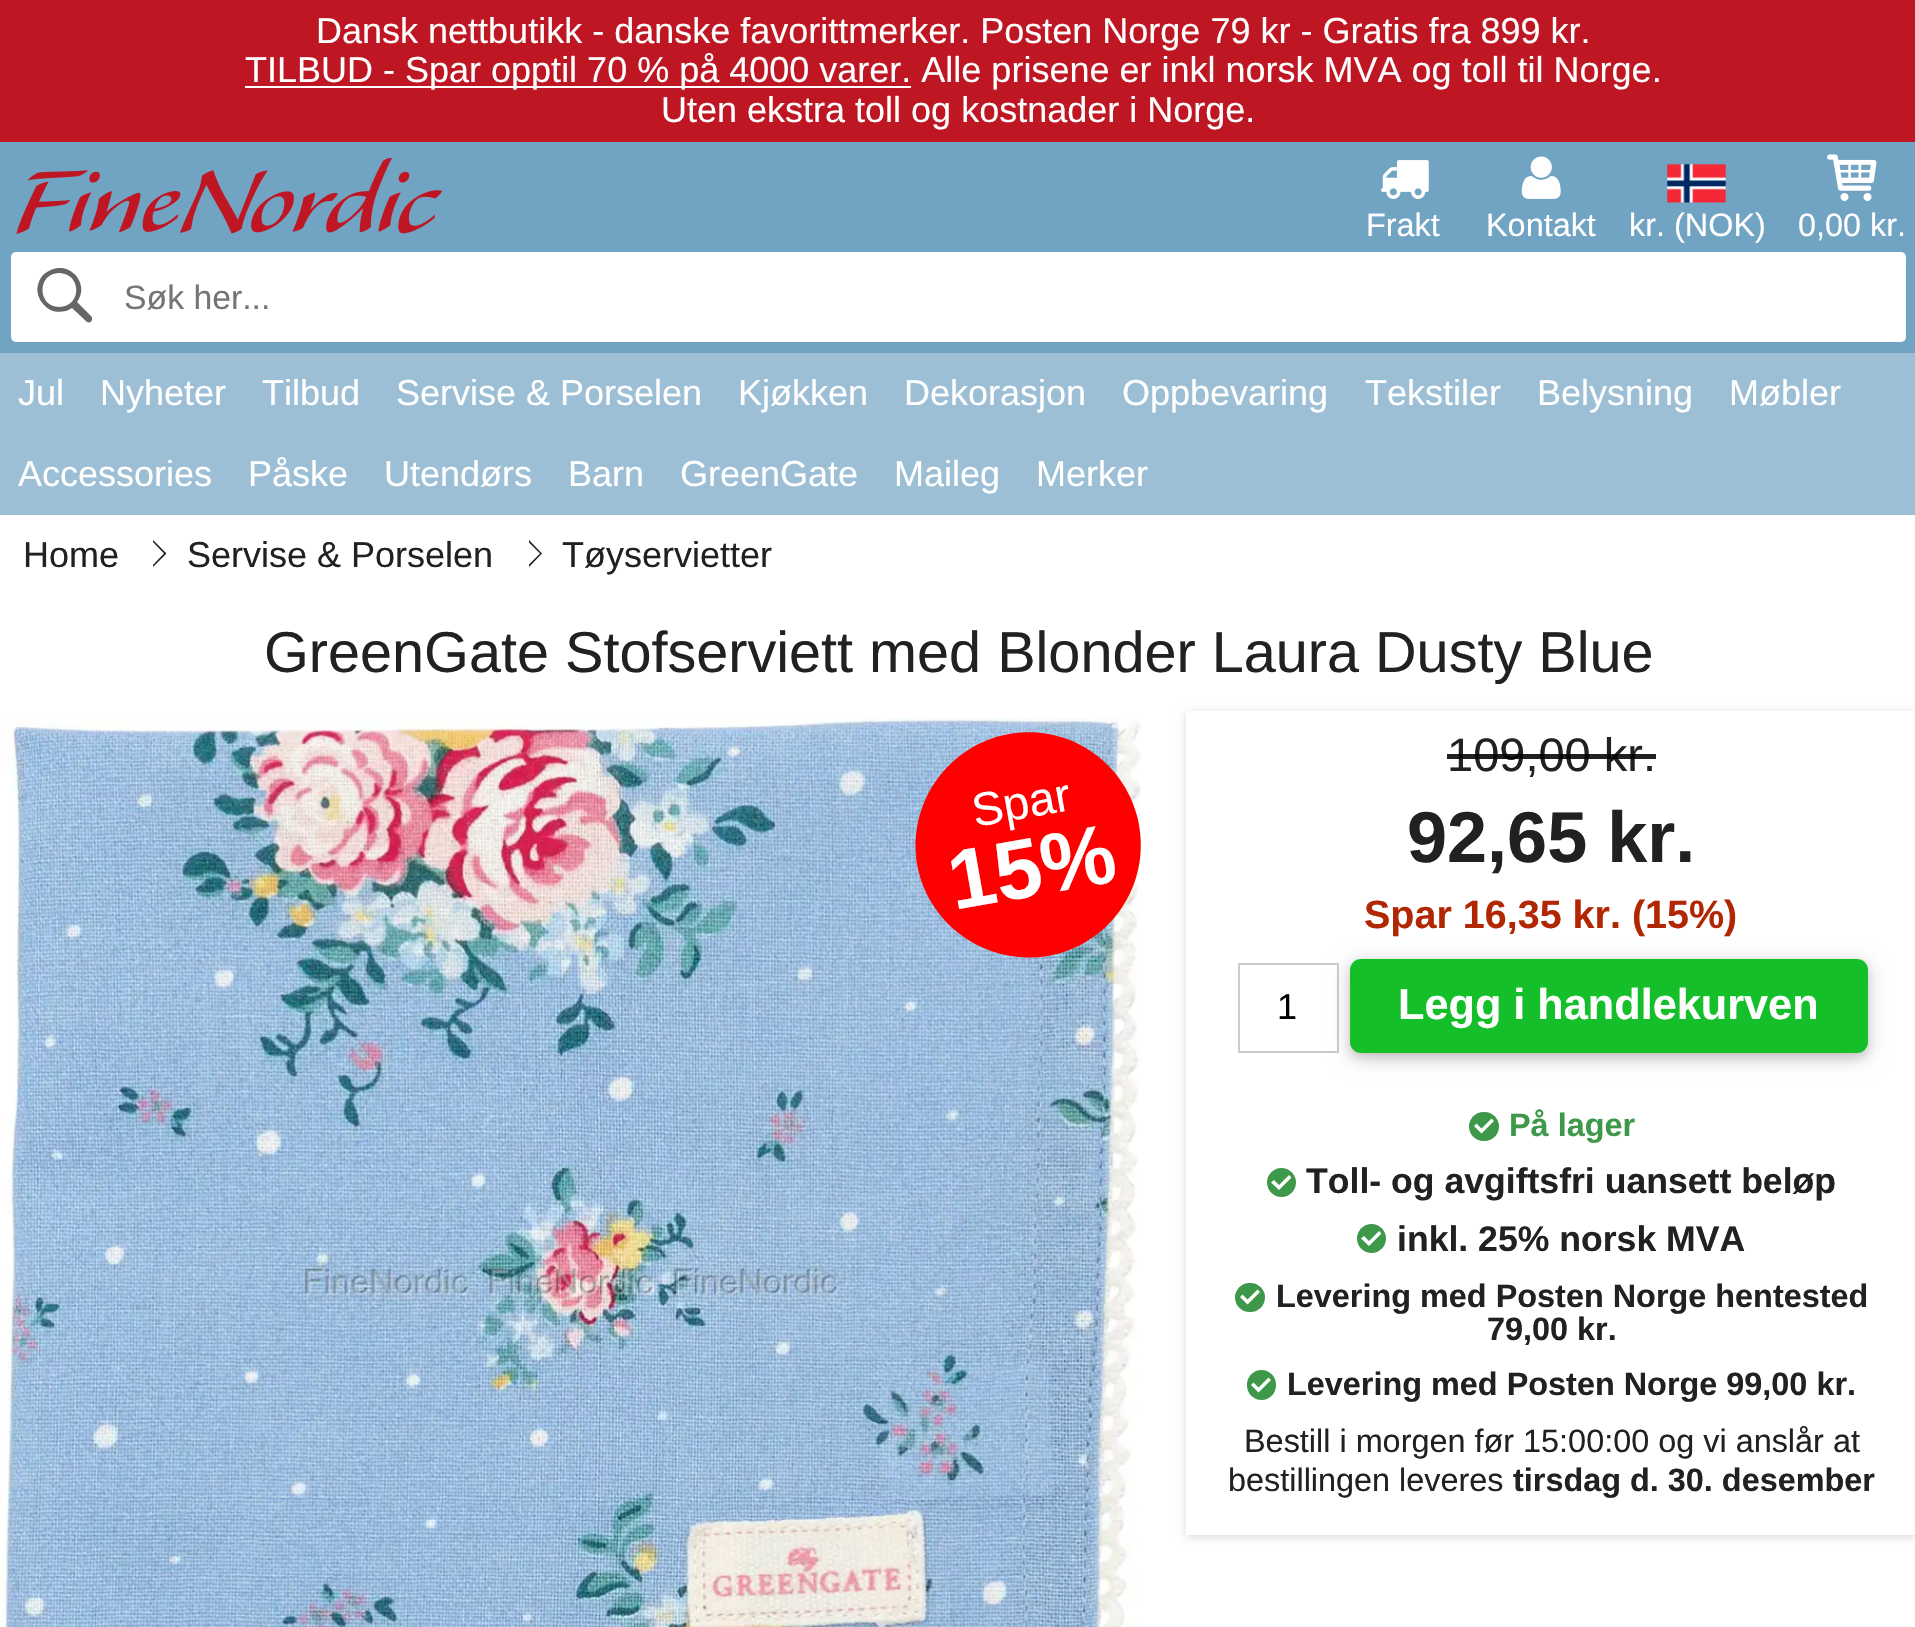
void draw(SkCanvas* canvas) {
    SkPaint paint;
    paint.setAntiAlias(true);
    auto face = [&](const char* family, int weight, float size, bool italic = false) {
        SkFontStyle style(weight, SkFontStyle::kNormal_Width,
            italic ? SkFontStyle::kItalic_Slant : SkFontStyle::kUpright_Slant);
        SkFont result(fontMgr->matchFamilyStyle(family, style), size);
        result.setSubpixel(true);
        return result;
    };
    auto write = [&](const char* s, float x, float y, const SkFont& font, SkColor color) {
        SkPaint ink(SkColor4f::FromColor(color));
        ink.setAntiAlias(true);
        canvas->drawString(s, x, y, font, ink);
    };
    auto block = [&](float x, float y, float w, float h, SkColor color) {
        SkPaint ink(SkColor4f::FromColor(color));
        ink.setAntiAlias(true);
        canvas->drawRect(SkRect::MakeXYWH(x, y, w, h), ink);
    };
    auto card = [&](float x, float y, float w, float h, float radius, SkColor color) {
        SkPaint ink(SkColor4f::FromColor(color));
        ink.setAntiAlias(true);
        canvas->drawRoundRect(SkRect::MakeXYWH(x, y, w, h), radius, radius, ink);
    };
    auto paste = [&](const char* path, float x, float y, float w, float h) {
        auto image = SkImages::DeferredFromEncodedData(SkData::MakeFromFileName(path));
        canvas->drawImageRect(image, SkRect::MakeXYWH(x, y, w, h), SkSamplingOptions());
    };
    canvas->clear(SK_ColorWHITE);
    block(0, 0, 1915, 142, SkColorSetRGB(190, 22, 34));
    auto kFont1 = face("Liberation Sans", 400, 36);
    write("Dansk nettbutikk - danske favorittmerker. Posten Norge 79 kr - Gratis fra 899 kr.", 316, 43, kFont1, SK_ColorWHITE);
    block(245, 86, 666, 2, SK_ColorWHITE);
    write("TILBUD - Spar opptil 70 % på 4000 varer. Alle prisene er inkl norsk MVA og toll til Norge.", 245, 82, kFont1, SK_ColorWHITE);
    write("Uten ekstra toll og kostnader i Norge.", 661, 122, kFont1, SK_ColorWHITE);
    block(0, 142, 1915, 211, SkColorSetRGB(113, 163, 195));
    paste("pic1.png", 1381, 160, 48, 39);
    auto kFont2 = face("Liberation Sans", 400, 32.4f);
    write("Frakt", 1366, 236, kFont2, SK_ColorWHITE);
    paste("pic2.png", 1521, 156, 40, 43);
    write("Kontakt", 1486, 236, kFont2, SK_ColorWHITE);
    paste("pic3.png", 1667, 163, 59, 40);
    write("kr. (NOK)", 1629, 236, kFont2, SK_ColorWHITE);
    paste("pic4.png", 1827, 154, 50, 47);
    write("0,00 kr.", 1798, 236, kFont2, SK_ColorWHITE);
    paste("pic5.png", 16, 158, 426, 76);
    card(11, 252, 1895, 90, 5, SK_ColorWHITE);
    canvas->save();
    canvas->clipRect(SkRect::MakeXYWH(34, 268, 58, 58));
    paint.setColor(SkColorSetRGB(102, 102, 102));
    canvas->drawPath(SkPathBuilder().moveTo(91, 316).lineTo(77, 302).cubicTo(91, 283, 68, 258, 47, 272).cubicTo(42, 275, 39, 280, 38, 285).cubicTo(36, 292, 39, 300, 44, 305).cubicTo(51, 313, 63, 314, 72, 308).lineTo(87, 322).cubicTo(91, 324, 94, 319, 91, 316).close().moveTo(59, 307).cubicTo(37, 307, 37, 273, 59, 273).cubicTo(82, 273, 82, 307, 59, 307).close().detach(), paint);
    canvas->restore();
    auto kFont3 = face("Liberation Sans", 400, 33.75f);
    write("Søk her...", 124, 309, kFont3, SkColorSetRGB(117, 117, 117));
    block(0, 353, 1915, 162, SkColorSetRGB(156, 191, 213));
    write("Jul", 18, 405, kFont1, SK_ColorWHITE);
    write("Nyheter", 100, 405, kFont1, SK_ColorWHITE);
    write("Tilbud", 262, 405, kFont1, SK_ColorWHITE);
    write("Servise & Porselen", 396, 405, kFont1, SK_ColorWHITE);
    write("Kjøkken", 738, 405, kFont1, SK_ColorWHITE);
    write("Dekorasjon", 904, 405, kFont1, SK_ColorWHITE);
    write("Oppbevaring", 1122, 405, kFont1, SK_ColorWHITE);
    write("Tekstiler", 1365, 405, kFont1, SK_ColorWHITE);
    write("Belysning", 1537, 405, kFont1, SK_ColorWHITE);
    write("Møbler", 1729, 405, kFont1, SK_ColorWHITE);
    write("Accessories", 18, 486, kFont1, SK_ColorWHITE);
    write("Påske", 248, 486, kFont1, SK_ColorWHITE);
    write("Utendørs", 384, 486, kFont1, SK_ColorWHITE);
    write("Barn", 568, 486, kFont1, SK_ColorWHITE);
    write("GreenGate", 680, 486, kFont1, SK_ColorWHITE);
    write("Maileg", 894, 486, kFont1, SK_ColorWHITE);
    write("Merker", 1036, 486, kFont1, SK_ColorWHITE);
    write("Home", 23, 567, kFont1, SkColorSetRGB(33, 33, 33));
    paint.setColor(SkColorSetRGB(33, 33, 33));
    canvas->drawPath(SkPathBuilder().moveTo(153, 567).lineTo(153, 540).lineTo(166.5f, 553.5f).close().detach(), paint);
    paint.setColor(SK_ColorWHITE);
    canvas->drawPath(SkPathBuilder().moveTo(151, 567).lineTo(151, 540).lineTo(164, 553.5f).close().detach(), paint);
    write("Servise & Porselen", 187, 567, kFont1, SkColorSetRGB(33, 33, 33));
    paint.setColor(SkColorSetRGB(33, 33, 33));
    canvas->drawPath(SkPathBuilder().moveTo(529, 567).lineTo(529, 540).lineTo(542, 553.5f).close().detach(), paint);
    paint.setColor(SK_ColorWHITE);
    canvas->drawPath(SkPathBuilder().moveTo(526.5f, 567).lineTo(526.5f, 540).lineTo(540, 553.5f).close().detach(), paint);
    write("Tøyservietter", 562, 567, kFont1, SkColorSetRGB(33, 33, 33));
    auto kFont4 = face("Liberation Sans", 400, 57.6f);
    write("GreenGate Stofserviett med Blonder Laura Dusty Blue", 264, 672, kFont4, SkColorSetRGB(33, 33, 33));
    paste("pic6.png", 0, 718, 1141, 909);
    paint.setColor(SkColorSetRGB(255, 0, 0));
    canvas->drawPath(SkPathBuilder().moveTo(1009, 734).cubicTo(1070, 723, 1128, 764, 1139, 825).cubicTo(1150, 887, 1109, 945, 1048, 956).cubicTo(987, 966, 928, 926, 917, 864).cubicTo(907, 803, 948, 745, 1009, 734).close().detach(), paint);
    auto kFont5 = face("Liberation Sans", 400, 47);
    canvas->save();
    canvas->rotate(-10, 975, 827);
    write("Spar", 975, 827, kFont5, SK_ColorWHITE);
    canvas->restore();
    auto kFont6 = face("Liberation Sans", 700, 84);
    canvas->save();
    canvas->rotate(-10, 954, 910);
    write("15%", 954, 910, kFont6, SK_ColorWHITE);
    canvas->restore();
    paint.setColor(SkColorSetARGB(36, 0, 0, 0));
    paint.setMaskFilter(SkMaskFilter::MakeBlur(kNormal_SkBlurStyle, 4.5f));
    canvas->drawRect(SkRect::MakeXYWH(1186, 713, 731, 824), paint);
    paint.setMaskFilter(nullptr);
    block(1186, 711, 729, 824, SK_ColorWHITE);
    write("109,00 kr.", 1447, 771, kFont5, SkColorSetRGB(33, 33, 33));
    block(1447, 754, 209, 5, SkColorSetARGB(222, 0, 0, 0));
    auto kFont7 = face("Liberation Sans", 700, 72);
    write("92,65 kr.", 1407, 862, kFont7, SkColorSetRGB(33, 33, 33));
    auto kFont8 = face("Liberation Sans", 700, 39.5f);
    write("Spar 16,35 kr. (15%)", 1364, 928, kFont8, SkColorSetRGB(177, 39, 4));
    paint.setStyle(SkPaint::kStroke_Style);
    paint.setStrokeWidth(2);
    paint.setColor(SkColorSetRGB(204, 204, 204));
    canvas->drawRect(SkRect::MakeXYWH(1239, 964, 99, 88), paint);
    write("1", 1277, 1019, kFont1, SK_ColorBLACK);
    paint.setStyle(SkPaint::kFill_Style);
    paint.setColor(SkColorSetARGB(31, 0, 0, 0));
    paint.setMaskFilter(SkMaskFilter::MakeBlur(kNormal_SkBlurStyle, 11));
    canvas->drawRoundRect(SkRect::MakeXYWH(1350, 963, 518, 95), 11, 11, paint);
    paint.setMaskFilter(nullptr);
    paint.setColor(SkColorSetARGB(41, 0, 0, 0));
    paint.setMaskFilter(SkMaskFilter::MakeBlur(kNormal_SkBlurStyle, 5.5f));
    canvas->drawRoundRect(SkRect::MakeXYWH(1350, 963, 518, 95), 11, 11, paint);
    paint.setMaskFilter(nullptr);
    card(1350, 959, 518, 94, 11, SkColorSetRGB(21, 191, 42));
    auto kFont9 = face("Liberation Sans", 700, 43.25f);
    write("Legg i handlekurven", 1398, 1019, kFont9, SK_ColorWHITE);
    card(1469, 1112, 30, 29, 14.5f, SkColorSetRGB(61, 152, 74));
    paint.setColor(SK_ColorWHITE);
    canvas->drawPath(SkPathBuilder().moveTo(1491.5f, 1118.5f).lineTo(1494, 1121).lineTo(1481.5f, 1133.5f).lineTo(1474, 1126).lineTo(1476.5f, 1123.5f).lineTo(1481.5f, 1128.5f).close().detach(), paint);
    auto kFont10 = face("Liberation Sans", 700, 32.4f);
    write("På lager", 1509, 1136, kFont10, SkColorSetRGB(61, 152, 74));
    paint.setColor(SkColorSetRGB(61, 152, 74));
    canvas->drawCircle(1281.5f, 1182.5f, 14.5f, paint);
    paint.setColor(SK_ColorWHITE);
    canvas->drawPath(SkPathBuilder().moveTo(1289, 1175).lineTo(1291.5f, 1177.5f).lineTo(1279, 1190).lineTo(1271, 1182.5f).lineTo(1274, 1180).lineTo(1279, 1185).close().detach(), paint);
    auto kFont11 = face("Liberation Sans", 700, 35.6f);
    write("Toll- og avgiftsfri uansett beløp", 1306, 1193, kFont11, SkColorSetRGB(33, 33, 33));
    paint.setColor(SkColorSetRGB(61, 152, 74));
    canvas->drawCircle(1371.5f, 1238.5f, 14.5f, paint);
    paint.setColor(SK_ColorWHITE);
    canvas->drawPath(SkPathBuilder().moveTo(1379, 1231).lineTo(1381.5f, 1233.5f).lineTo(1369, 1246).lineTo(1361, 1238.5f).lineTo(1364, 1236).lineTo(1369, 1241).close().detach(), paint);
    write("inkl. 25% norsk MVA", 1397, 1251, kFont11, SkColorSetRGB(33, 33, 33));
    card(1235, 1283, 30, 29, 14.5f, SkColorSetRGB(61, 152, 74));
    canvas->drawPath(SkPathBuilder().moveTo(1257.5f, 1289.5f).lineTo(1260, 1292).lineTo(1247.5f, 1304.5f).lineTo(1240, 1297).lineTo(1242.5f, 1294.5f).lineTo(1247.5f, 1299.5f).close().detach(), paint);
    write("Levering med Posten Norge hentested", 1276, 1307, kFont10, SkColorSetRGB(33, 33, 33));
    write("79,00 kr.", 1487, 1340, kFont10, SkColorSetRGB(33, 33, 33));
    card(1247, 1370, 29, 30, 14.5f, SkColorSetRGB(61, 152, 74));
    canvas->drawPath(SkPathBuilder().moveTo(1268.5f, 1377.5f).lineTo(1271, 1380).lineTo(1258.5f, 1392.5f).lineTo(1251, 1385).lineTo(1253.5f, 1382.5f).lineTo(1258.5f, 1387.5f).close().detach(), paint);
    write("Levering med Posten Norge 99,00 kr.", 1287, 1395, kFont10, SkColorSetRGB(33, 33, 33));
    write("Bestill i morgen før 15:00:00 og vi anslår at", 1244, 1452, kFont2, SkColorSetRGB(33, 33, 33));
    write("bestillingen leveres", 1228, 1491, kFont2, SkColorSetRGB(33, 33, 33));
    write("tirsdag d. 30. desember", 1513, 1491, kFont10, SkColorSetRGB(33, 33, 33));
}
